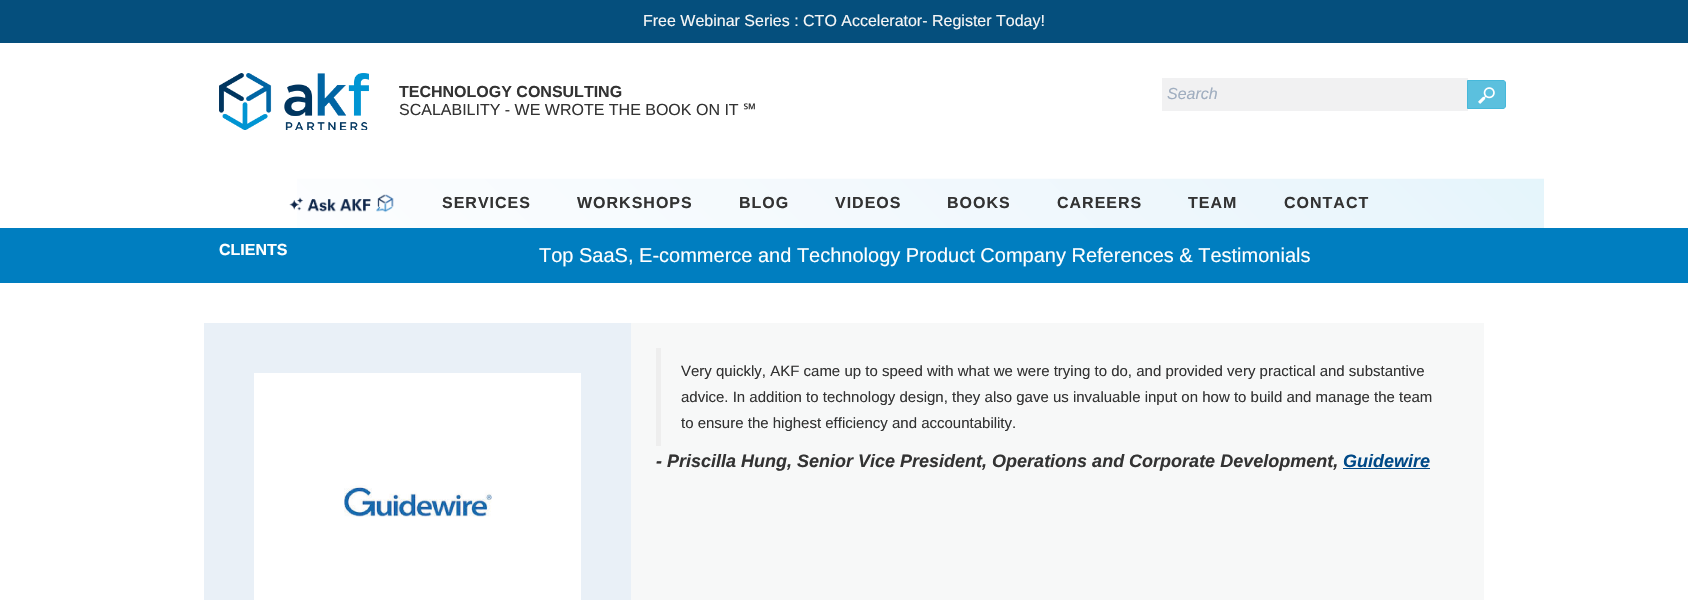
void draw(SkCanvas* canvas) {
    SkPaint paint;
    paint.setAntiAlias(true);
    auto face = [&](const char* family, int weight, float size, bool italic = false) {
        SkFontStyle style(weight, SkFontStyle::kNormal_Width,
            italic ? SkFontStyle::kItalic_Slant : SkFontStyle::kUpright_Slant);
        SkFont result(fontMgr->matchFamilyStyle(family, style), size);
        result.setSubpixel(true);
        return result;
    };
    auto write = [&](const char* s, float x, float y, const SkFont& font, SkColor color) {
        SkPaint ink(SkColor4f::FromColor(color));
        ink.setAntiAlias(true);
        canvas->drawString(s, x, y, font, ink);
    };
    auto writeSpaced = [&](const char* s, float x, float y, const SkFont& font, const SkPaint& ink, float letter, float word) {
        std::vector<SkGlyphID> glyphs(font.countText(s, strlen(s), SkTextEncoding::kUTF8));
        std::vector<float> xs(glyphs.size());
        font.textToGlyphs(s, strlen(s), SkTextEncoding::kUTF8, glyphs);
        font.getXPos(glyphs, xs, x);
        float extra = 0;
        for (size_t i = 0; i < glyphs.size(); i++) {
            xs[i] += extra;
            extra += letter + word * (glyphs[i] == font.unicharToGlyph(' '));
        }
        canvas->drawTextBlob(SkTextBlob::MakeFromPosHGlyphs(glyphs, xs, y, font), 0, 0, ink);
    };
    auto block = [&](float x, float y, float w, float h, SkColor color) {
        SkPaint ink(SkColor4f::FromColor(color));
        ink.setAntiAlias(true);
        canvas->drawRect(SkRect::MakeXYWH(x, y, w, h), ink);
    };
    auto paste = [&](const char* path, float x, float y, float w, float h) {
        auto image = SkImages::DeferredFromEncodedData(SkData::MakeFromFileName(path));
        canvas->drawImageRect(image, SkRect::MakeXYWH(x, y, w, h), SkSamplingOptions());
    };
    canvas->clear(SK_ColorWHITE);
    block(0, 0, 1688, 43, SkColorSetRGB(5, 79, 125));
    auto kFont1 = face("Liberation Sans", 400, 16);
    write("Free Webinar Series : CTO Accelerator- Register Today!", 643, 26, kFont1, SkColorSetRGB(246, 246, 246));
    paste("pic1.png", 219, 73, 150, 57);
    auto kFont2 = face("Liberation Sans", 700, 16);
    write("TECHNOLOGY CONSULTING", 399, 97, kFont2, SkColorSetRGB(51, 51, 51));
    write("SCALABILITY - WE WROTE THE BOOK ON IT", 399, 115, kFont1, SkColorSetRGB(51, 51, 51));
    auto kFont3 = face("Noto Sans", 400, 16);
    write("℠", 743, 115, kFont3, SkColorSetRGB(51, 51, 51));
    block(1162, 78, 306, 33, SkColorSetRGB(241, 241, 242));
    auto kFont4 = face("Liberation Sans", 400, 16, true);
    write("Search", 1167, 99, kFont4, SkColorSetRGB(160, 174, 192));
    paint.setColor(SkColorSetRGB(91, 192, 222));
    canvas->drawPath(SkPathBuilder().moveTo(1467.5f, 80.5f).lineTo(1503, 80.5f).cubicTo(1504.5f, 80.5f, 1505.5f, 81.5f, 1505.5f, 83).lineTo(1505.5f, 106).cubicTo(1505.5f, 107.5f, 1504.5f, 108.5f, 1503, 108.5f).lineTo(1467.5f, 108.5f).close().detach(), paint);
    paint.setStyle(SkPaint::kStroke_Style);
    paint.setStrokeWidth(1);
    paint.setColor(SkColorSetRGB(70, 184, 218));
    canvas->drawPath(SkPathBuilder().moveTo(1467.5f, 80.5f).lineTo(1503, 80.5f).cubicTo(1504.5f, 80.5f, 1505.5f, 81.5f, 1505.5f, 83).lineTo(1505.5f, 106).cubicTo(1505.5f, 107.5f, 1504.5f, 108.5f, 1503, 108.5f).lineTo(1467.5f, 108.5f).close().detach(), paint);
    paste("pic2.png", 1478, 87, 17, 17);
    paste("pic3.png", 297, 178, 1247, 50);
    paste("pic4.png", 289, 194, 105, 19);
    paint.setStyle(SkPaint::kFill_Style);
    paint.setColor(SkColorSetRGB(51, 51, 51));
    writeSpaced("SERVICES", 442, 208, kFont2, paint, 1, 0);
    writeSpaced("WORKSHOPS", 577, 208, kFont2, paint, 1, 0);
    writeSpaced("BLOG", 739, 208, kFont2, paint, 1, 0);
    writeSpaced("VIDEOS", 835, 208, kFont2, paint, 1, 0);
    writeSpaced("BOOKS", 947, 208, kFont2, paint, 1, 0);
    writeSpaced("CAREERS", 1057, 208, kFont2, paint, 1, 0);
    writeSpaced("TEAM", 1188, 208, kFont2, paint, 1, 0);
    writeSpaced("CONTACT", 1284, 208, kFont2, paint, 1, 0);
    block(0, 228, 1688, 55, SkColorSetRGB(0, 126, 192));
    write("CLIENTS", 219, 255, kFont2, SK_ColorWHITE);
    auto kFont5 = face("Liberation Sans", 400, 20);
    write("Top SaaS, E-commerce and Technology Product Company References & Testimonials", 539, 262, kFont5, SK_ColorWHITE);
    paint.setStyle(SkPaint::kStroke_Style);
    paint.setStrokeWidth(50);
    paint.setColor(SkColorSetRGB(233, 240, 247));
    canvas->drawRect(SkRect::MakeXYWH(229, 348, 377, 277), paint);
    paste("pic5.png", 344, 485, 148, 32);
    block(631, 323, 853, 277, SkColorSetRGB(247, 248, 248));
    block(656, 348, 5, 98, SkColorSetRGB(238, 238, 238));
    auto kFont6 = face("Liberation Sans", 400, 15);
    write("Very quickly, AKF came up to speed with what we were trying to do, and provided very practical and substantive", 681, 376, kFont6, SkColorSetRGB(51, 51, 51));
    write("advice. In addition to technology design, they also gave us invaluable input on how to build and manage the team", 681, 402, kFont6, SkColorSetRGB(51, 51, 51));
    write("to ensure the highest efficiency and accountability.", 681, 428, kFont6, SkColorSetRGB(51, 51, 51));
    auto kFont7 = face("Liberation Sans", 700, 18, true);
    write("- Priscilla Hung, Senior Vice President, Operations and Corporate Development,", 656, 467, kFont7, SkColorSetRGB(51, 51, 51));
    write("Guidewire", 1343, 467, kFont7, SkColorSetRGB(0, 73, 135));
    block(1343, 468, 87, 1, SkColorSetRGB(0, 73, 135));
}
